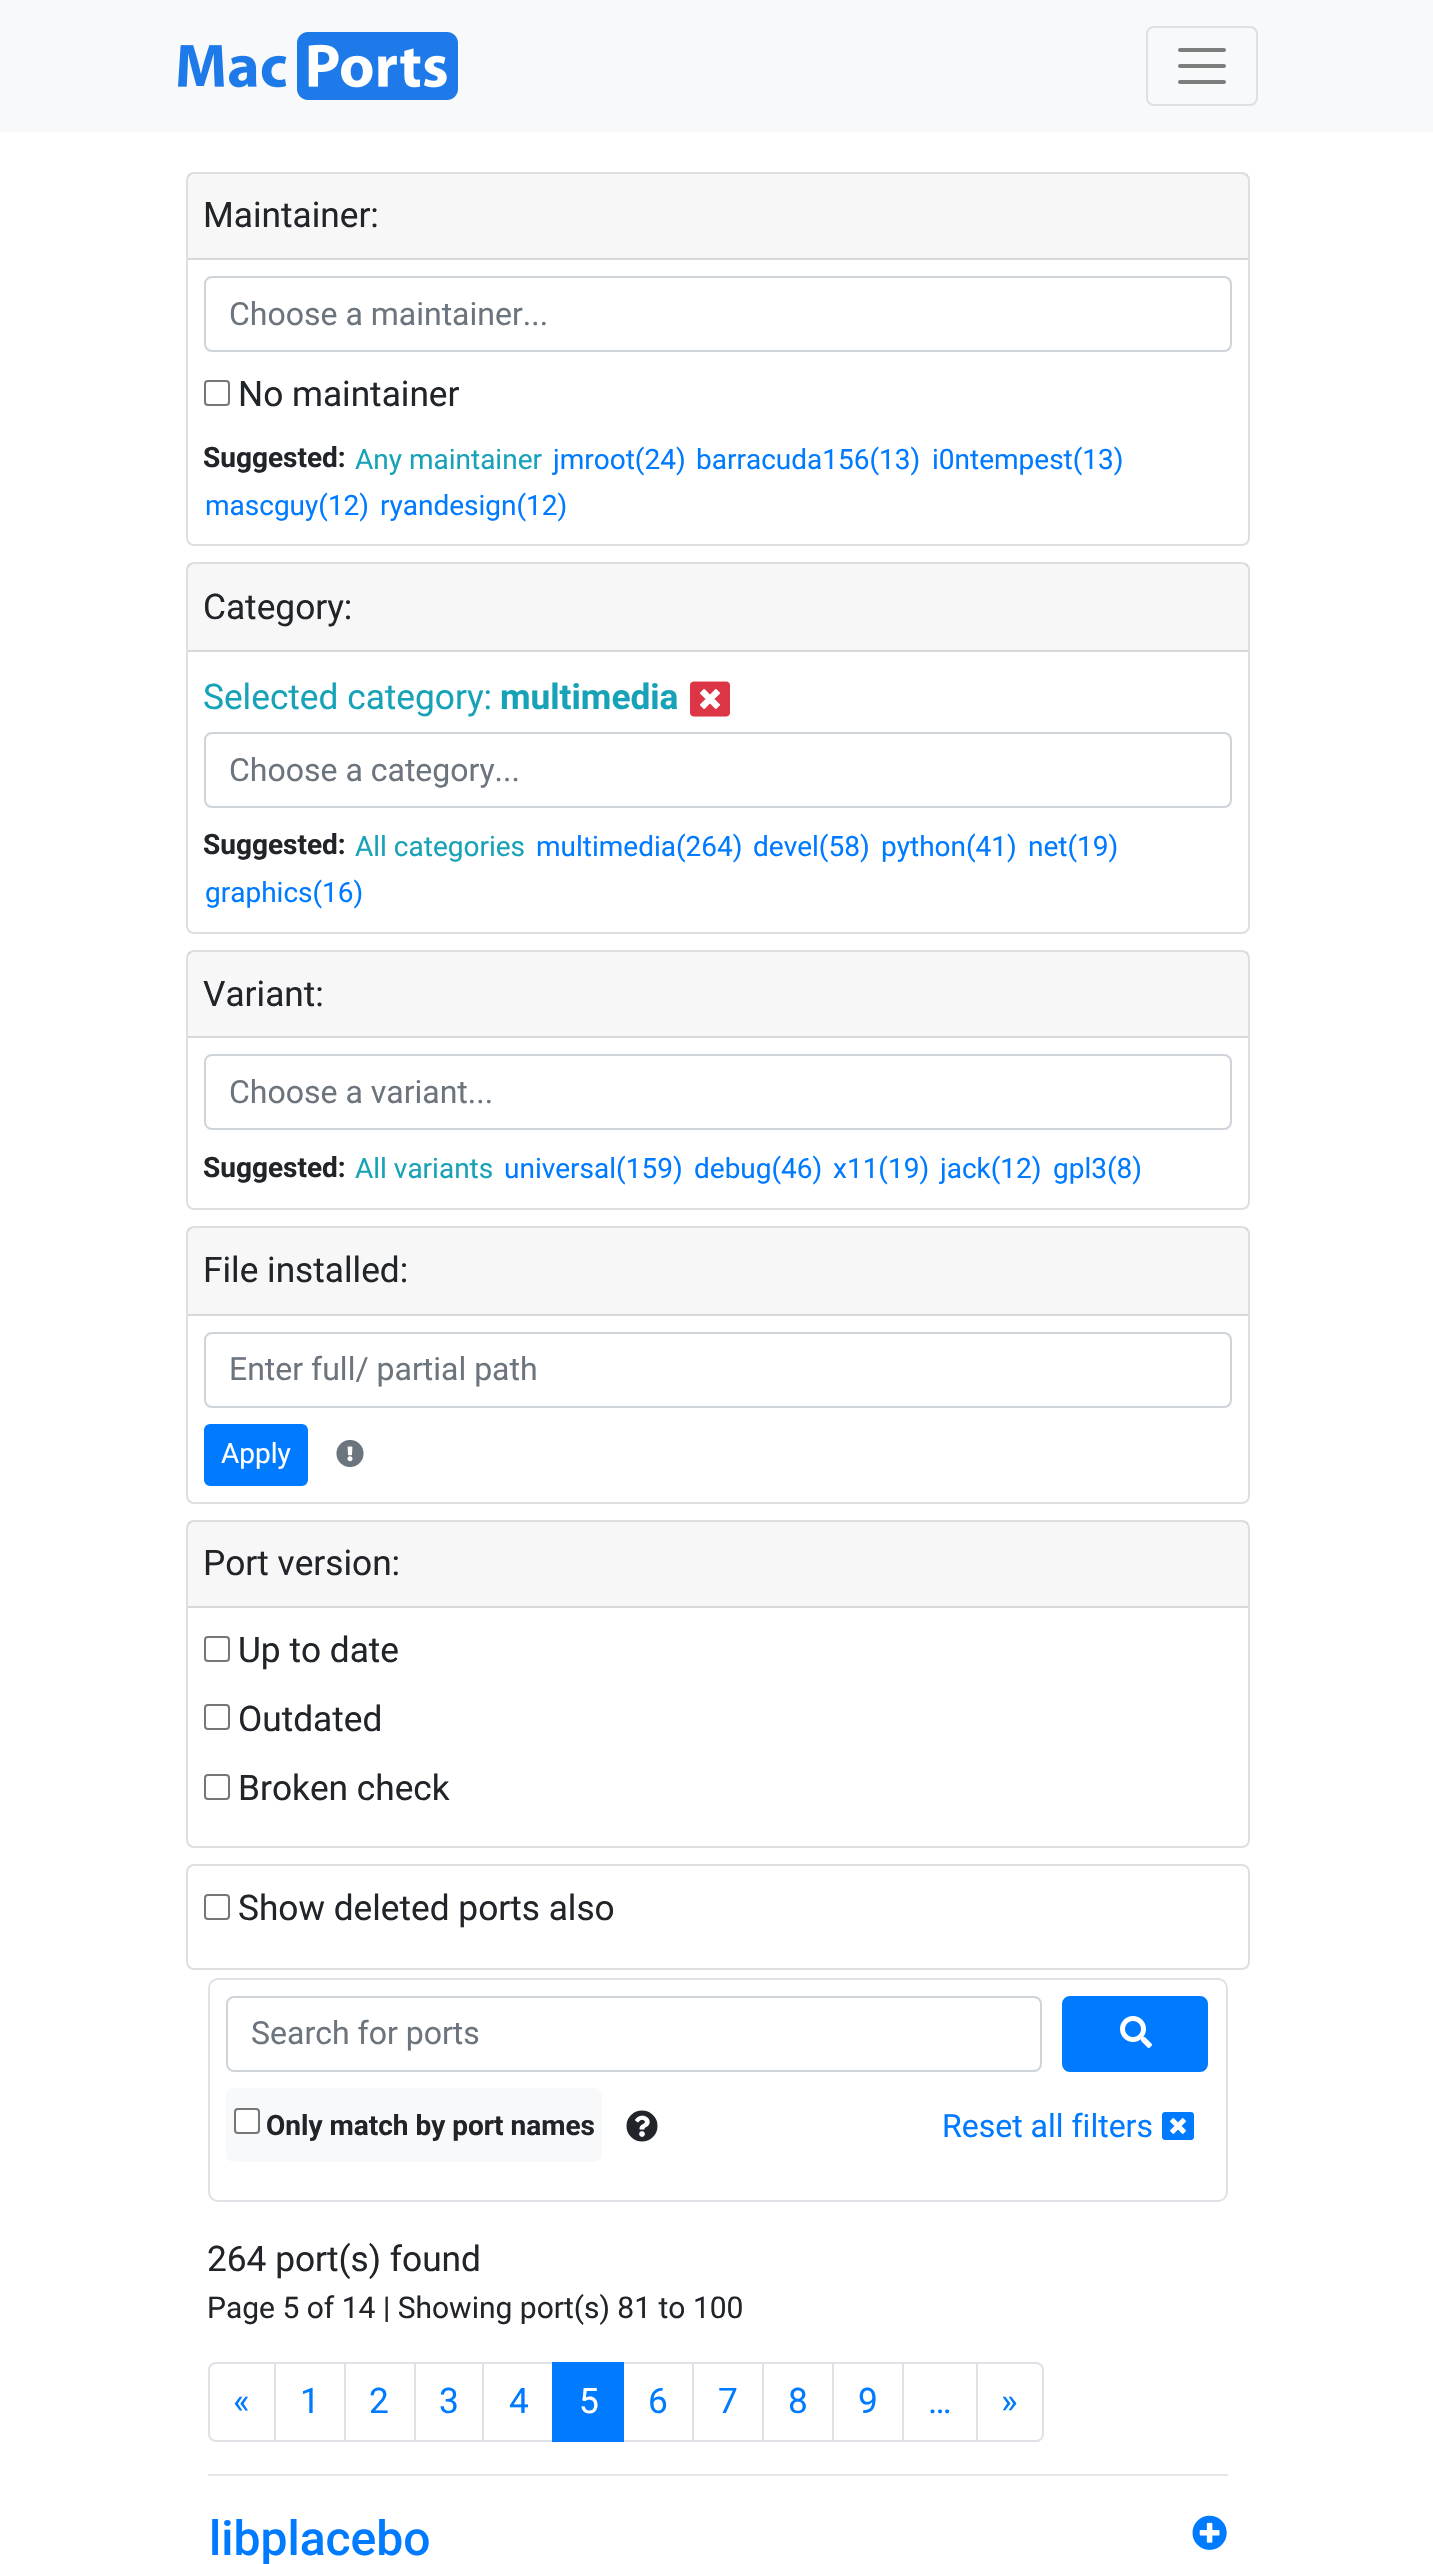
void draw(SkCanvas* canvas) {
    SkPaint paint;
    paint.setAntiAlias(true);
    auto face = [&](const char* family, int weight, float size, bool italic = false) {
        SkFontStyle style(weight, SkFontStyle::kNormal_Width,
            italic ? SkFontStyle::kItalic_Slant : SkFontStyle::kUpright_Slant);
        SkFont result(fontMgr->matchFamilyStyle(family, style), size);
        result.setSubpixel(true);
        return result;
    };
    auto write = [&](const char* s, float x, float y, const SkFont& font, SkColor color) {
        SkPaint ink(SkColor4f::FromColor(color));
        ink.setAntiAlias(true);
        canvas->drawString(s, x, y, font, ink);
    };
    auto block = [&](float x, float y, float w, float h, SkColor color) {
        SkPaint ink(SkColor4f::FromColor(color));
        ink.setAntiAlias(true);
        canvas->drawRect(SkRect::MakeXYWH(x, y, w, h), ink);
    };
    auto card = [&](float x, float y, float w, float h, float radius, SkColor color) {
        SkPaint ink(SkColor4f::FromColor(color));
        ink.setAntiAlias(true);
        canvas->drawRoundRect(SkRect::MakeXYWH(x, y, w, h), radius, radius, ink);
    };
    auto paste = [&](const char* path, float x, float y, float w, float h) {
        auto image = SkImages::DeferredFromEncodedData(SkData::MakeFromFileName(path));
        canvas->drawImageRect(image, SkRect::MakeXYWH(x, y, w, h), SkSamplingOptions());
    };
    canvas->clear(SK_ColorWHITE);
    block(0, 0, 1433, 132, SkColorSetRGB(248, 249, 250));
    paste("pic1.png", 178, 32, 280, 68);
    paint.setStyle(SkPaint::kStroke_Style);
    paint.setStrokeWidth(2);
    paint.setColor(SkColorSetRGB(223, 224, 225));
    canvas->drawRoundRect(SkRect::MakeXYWH(1147, 27, 110, 78), 7, 7, paint);
    paint.setStrokeWidth(4);
    paint.setStrokeCap(SkPaint::kRound_Cap);
    paint.setColor(SkColorSetRGB(124, 125, 125));
    canvas->drawPath(SkPathBuilder().moveTo(1180, 50).lineTo(1224, 50).moveTo(1180, 66).lineTo(1224, 66).moveTo(1180, 82).lineTo(1224, 82).detach(), paint);
    paint.setStrokeWidth(2);
    paint.setStrokeCap(SkPaint::kButt_Cap);
    paint.setColor(SkColorSetRGB(223, 223, 223));
    canvas->drawRoundRect(SkRect::MakeXYWH(187, 173, 1062, 372), 7, 7, paint);
    block(188, 174, 1060, 84, SkColorSetARGB(8, 0, 0, 0));
    block(188, 258, 1060, 2, SkColorSetRGB(216, 216, 216));
    auto kFont1 = face("Roboto", 400, 35.25f);
    write("Maintainer:", 203, 227, kFont1, SkColorSetRGB(33, 37, 41));
    paint.setColor(SkColorSetRGB(206, 212, 218));
    canvas->drawRoundRect(SkRect::MakeXYWH(205, 277, 1026, 74), 7, 7, paint);
    auto kFont2 = face("Roboto", 400, 32);
    write("Choose a maintainer...", 229, 325, kFont2, SkColorSetRGB(108, 117, 125));
    paint.setColor(SkColorSetRGB(118, 118, 118));
    canvas->drawRoundRect(SkRect::MakeXYWH(205, 381, 24, 24), 3, 3, paint);
    write("No maintainer", 238, 406, kFont1, SkColorSetRGB(33, 37, 41));
    auto kFont3 = face("Roboto", 700, 28);
    write("Suggested:", 203, 467, kFont3, SkColorSetRGB(33, 37, 41));
    auto kFont4 = face("Roboto", 400, 28);
    write("Any maintainer", 355, 469, kFont4, SkColorSetRGB(23, 162, 184));
    write("jmroot(24)", 553, 469, kFont4, SkColorSetRGB(0, 123, 255));
    write("barracuda156(13)", 696, 469, kFont4, SkColorSetRGB(0, 123, 255));
    write("i0ntempest(13)", 932, 469, kFont4, SkColorSetRGB(0, 123, 255));
    write("mascguy(12)", 205, 515, kFont4, SkColorSetRGB(0, 123, 255));
    write("ryandesign(12)", 380, 515, kFont4, SkColorSetRGB(0, 123, 255));
    paint.setColor(SkColorSetRGB(223, 223, 223));
    canvas->drawRoundRect(SkRect::MakeXYWH(187, 563, 1062, 370), 7, 7, paint);
    block(188, 564, 1060, 86, SkColorSetARGB(8, 0, 0, 0));
    block(188, 650, 1060, 2, SkColorSetRGB(216, 216, 216));
    write("Category:", 203, 619, kFont1, SkColorSetRGB(33, 37, 41));
    write("Selected category:", 203, 709, kFont1, SkColorSetRGB(23, 162, 184));
    auto kFont5 = face("Roboto", 700, 35.25f);
    write("multimedia", 500, 709, kFont5, SkColorSetRGB(23, 162, 184));
    paste("pic2.png", 690, 681, 40, 36);
    paint.setColor(SkColorSetRGB(206, 212, 218));
    canvas->drawRoundRect(SkRect::MakeXYWH(205, 733, 1026, 74), 7, 7, paint);
    write("Choose a category...", 229, 781, kFont2, SkColorSetRGB(108, 117, 125));
    write("Suggested:", 203, 854, kFont3, SkColorSetRGB(33, 37, 41));
    write("All categories", 355, 856, kFont4, SkColorSetRGB(23, 162, 184));
    write("multimedia(264)", 536, 856, kFont4, SkColorSetRGB(0, 123, 255));
    write("devel(58)", 753, 856, kFont4, SkColorSetRGB(0, 123, 255));
    write("python(41)", 881, 856, kFont4, SkColorSetRGB(0, 123, 255));
    write("net(19)", 1028, 856, kFont4, SkColorSetRGB(0, 123, 255));
    write("graphics(16)", 205, 902, kFont4, SkColorSetRGB(0, 123, 255));
    paint.setColor(SkColorSetRGB(223, 223, 223));
    canvas->drawRoundRect(SkRect::MakeXYWH(187, 951, 1062, 258), 7, 7, paint);
    block(188, 952, 1060, 84, SkColorSetARGB(8, 0, 0, 0));
    block(188, 1036, 1060, 2, SkColorSetRGB(216, 216, 216));
    write("Variant:", 203, 1006, kFont1, SkColorSetRGB(33, 37, 41));
    paint.setColor(SkColorSetRGB(206, 212, 218));
    canvas->drawRoundRect(SkRect::MakeXYWH(205, 1055, 1026, 74), 7, 7, paint);
    write("Choose a variant...", 229, 1103, kFont2, SkColorSetRGB(108, 117, 125));
    write("Suggested:", 203, 1177, kFont3, SkColorSetRGB(33, 37, 41));
    write("All variants", 355, 1178, kFont4, SkColorSetRGB(23, 162, 184));
    write("universal(159)", 504, 1178, kFont4, SkColorSetRGB(0, 123, 255));
    write("debug(46)", 694, 1178, kFont4, SkColorSetRGB(0, 123, 255));
    write("x11(19)", 833, 1178, kFont4, SkColorSetRGB(0, 123, 255));
    write("jack(12)", 940, 1178, kFont4, SkColorSetRGB(0, 123, 255));
    write("gpl3(8)", 1053, 1178, kFont4, SkColorSetRGB(0, 123, 255));
    paint.setColor(SkColorSetRGB(223, 223, 223));
    canvas->drawRoundRect(SkRect::MakeXYWH(187, 1227, 1062, 276), 7, 7, paint);
    block(188, 1228, 1060, 86, SkColorSetARGB(8, 0, 0, 0));
    block(188, 1314, 1060, 2, SkColorSetRGB(216, 216, 216));
    write("File installed:", 203, 1282, kFont1, SkColorSetRGB(33, 37, 41));
    paint.setColor(SkColorSetRGB(206, 212, 218));
    canvas->drawRoundRect(SkRect::MakeXYWH(205, 1333, 1026, 74), 7, 7, paint);
    write("Enter full/ partial path", 229, 1380, kFont2, SkColorSetRGB(108, 117, 125));
    paint.setStyle(SkPaint::kFill_Style);
    paint.setColor(SkColorSetRGB(0, 123, 255));
    canvas->drawRoundRect(SkRect::MakeXYWH(205, 1425, 102, 60), 5, 5, paint);
    paint.setStyle(SkPaint::kStroke_Style);
    canvas->drawRoundRect(SkRect::MakeXYWH(205, 1425, 102, 60), 5, 5, paint);
    write("Apply", 221, 1463, kFont4, SK_ColorWHITE);
    paste("pic3.png", 336, 1440, 28, 27);
    paint.setColor(SkColorSetRGB(223, 223, 223));
    canvas->drawRoundRect(SkRect::MakeXYWH(187, 1521, 1062, 326), 7, 7, paint);
    block(188, 1522, 1060, 84, SkColorSetARGB(8, 0, 0, 0));
    block(188, 1606, 1060, 2, SkColorSetRGB(216, 216, 216));
    write("Port version:", 203, 1575, kFont1, SkColorSetRGB(33, 37, 41));
    paint.setColor(SkColorSetRGB(118, 118, 118));
    canvas->drawRoundRect(SkRect::MakeXYWH(205, 1637, 24, 24), 3, 3, paint);
    write("Up to date", 238, 1662, kFont1, SkColorSetRGB(33, 37, 41));
    canvas->drawRoundRect(SkRect::MakeXYWH(205, 1705, 24, 24), 3, 3, paint);
    write("Outdated", 238, 1731, kFont1, SkColorSetRGB(33, 37, 41));
    canvas->drawRoundRect(SkRect::MakeXYWH(205, 1775, 24, 24), 3, 3, paint);
    write("Broken check", 238, 1800, kFont1, SkColorSetRGB(33, 37, 41));
    paint.setColor(SkColorSetRGB(223, 223, 223));
    canvas->drawRoundRect(SkRect::MakeXYWH(187, 1865, 1062, 104), 7, 7, paint);
    paint.setColor(SkColorSetRGB(118, 118, 118));
    canvas->drawRoundRect(SkRect::MakeXYWH(205, 1895, 24, 24), 3, 3, paint);
    write("Show deleted ports also", 238, 1920, kFont1, SkColorSetRGB(33, 37, 41));
    paint.setColor(SkColorSetRGB(222, 226, 230));
    canvas->drawRoundRect(SkRect::MakeXYWH(209, 1979, 1018, 222), 9, 9, paint);
    paint.setColor(SkColorSetRGB(206, 212, 218));
    canvas->drawRoundRect(SkRect::MakeXYWH(227, 1997, 814, 74), 7, 7, paint);
    write("Search for ports", 251, 2044, kFont2, SkColorSetRGB(108, 117, 125));
    paint.setStyle(SkPaint::kFill_Style);
    paint.setColor(SkColorSetRGB(0, 123, 255));
    canvas->drawRoundRect(SkRect::MakeXYWH(1063, 1997, 144, 74), 7, 7, paint);
    paint.setStyle(SkPaint::kStroke_Style);
    canvas->drawRoundRect(SkRect::MakeXYWH(1063, 1997, 144, 74), 7, 7, paint);
    paste("pic4.png", 1120, 2016, 32, 32);
    card(226, 2088, 376, 74, 8, SkColorSetRGB(248, 249, 250));
    paint.setStyle(SkPaint::kFill_Style);
    paint.setColor(SK_ColorWHITE);
    canvas->drawRoundRect(SkRect::MakeXYWH(235, 2109, 24, 24), 3, 3, paint);
    paint.setStyle(SkPaint::kStroke_Style);
    paint.setColor(SkColorSetRGB(118, 118, 118));
    canvas->drawRoundRect(SkRect::MakeXYWH(235, 2109, 24, 24), 3, 3, paint);
    write("Only match by port names", 266, 2135, kFont3, SkColorSetRGB(33, 37, 41));
    paste("pic5.png", 626, 2110, 32, 32);
    write("Reset all filters", 942, 2137, kFont2, SkColorSetRGB(0, 123, 255));
    paste("pic6.png", 1162, 2112, 32, 28);
    write("264 port(s) found", 207, 2271, kFont1, SkColorSetRGB(33, 37, 41));
    auto kFont6 = face("Roboto", 400, 30);
    write("Page 5 of 14 | Showing port(s) 81 to 100", 207, 2318, kFont6, SkColorSetRGB(33, 37, 41));
    paint.setColor(SkColorSetRGB(222, 226, 230));
    canvas->drawPath(SkPathBuilder().moveTo(216, 2363).lineTo(275, 2363).lineTo(275, 2441).lineTo(216, 2441).cubicTo(212, 2441, 209, 2438, 209, 2434).lineTo(209, 2370).cubicTo(209, 2366, 212, 2363, 216, 2363).close().detach(), paint);
    write("«", 233, 2413, kFont1, SkColorSetRGB(0, 123, 255));
    canvas->drawRect(SkRect::MakeXYWH(275, 2363, 70, 78), paint);
    write("1", 300, 2413, kFont1, SkColorSetRGB(0, 123, 255));
    canvas->drawRect(SkRect::MakeXYWH(345, 2363, 70, 78), paint);
    write("2", 369, 2413, kFont1, SkColorSetRGB(0, 123, 255));
    canvas->drawRect(SkRect::MakeXYWH(415, 2363, 68, 78), paint);
    write("3", 439, 2413, kFont1, SkColorSetRGB(0, 123, 255));
    canvas->drawRect(SkRect::MakeXYWH(483, 2363, 70, 78), paint);
    write("4", 509, 2413, kFont1, SkColorSetRGB(0, 123, 255));
    canvas->drawRect(SkRect::MakeXYWH(623, 2363, 70, 78), paint);
    block(552, 2362, 72, 80, SkColorSetRGB(0, 123, 255));
    write("5", 579, 2413, kFont1, SK_ColorWHITE);
    write("6", 648, 2413, kFont1, SkColorSetRGB(0, 123, 255));
    canvas->drawRect(SkRect::MakeXYWH(693, 2363, 70, 78), paint);
    write("7", 718, 2413, kFont1, SkColorSetRGB(0, 123, 255));
    canvas->drawRect(SkRect::MakeXYWH(763, 2363, 70, 78), paint);
    write("8", 788, 2413, kFont1, SkColorSetRGB(0, 123, 255));
    canvas->drawRect(SkRect::MakeXYWH(833, 2363, 70, 78), paint);
    write("9", 858, 2413, kFont1, SkColorSetRGB(0, 123, 255));
    canvas->drawRect(SkRect::MakeXYWH(903, 2363, 74, 78), paint);
    paint.setStyle(SkPaint::kFill_Style);
    paint.setColor(SK_ColorWHITE);
    canvas->drawPath(SkPathBuilder().moveTo(977, 2363).lineTo(1036, 2363).cubicTo(1040, 2363, 1043, 2366, 1043, 2370).lineTo(1043, 2434).cubicTo(1043, 2438, 1040, 2441, 1036, 2441).lineTo(977, 2441).close().detach(), paint);
    paint.setStyle(SkPaint::kStroke_Style);
    paint.setColor(SkColorSetRGB(222, 226, 230));
    canvas->drawPath(SkPathBuilder().moveTo(977, 2363).lineTo(1036, 2363).cubicTo(1040, 2363, 1043, 2366, 1043, 2370).lineTo(1043, 2434).cubicTo(1043, 2438, 1040, 2441, 1036, 2441).lineTo(977, 2441).close().detach(), paint);
    write("»", 1001, 2413, kFont1, SkColorSetRGB(0, 123, 255));
    write("…", 928, 2413, kFont1, SkColorSetRGB(0, 123, 255));
    block(208, 2474, 1020, 2, SkColorSetRGB(230, 230, 230));
    auto kFont7 = face("Roboto", 500, 48);
    write("libplacebo", 209, 2555, kFont7, SkColorSetRGB(0, 123, 255));
    paste("pic7.png", 1192, 2515, 35, 35);
}
